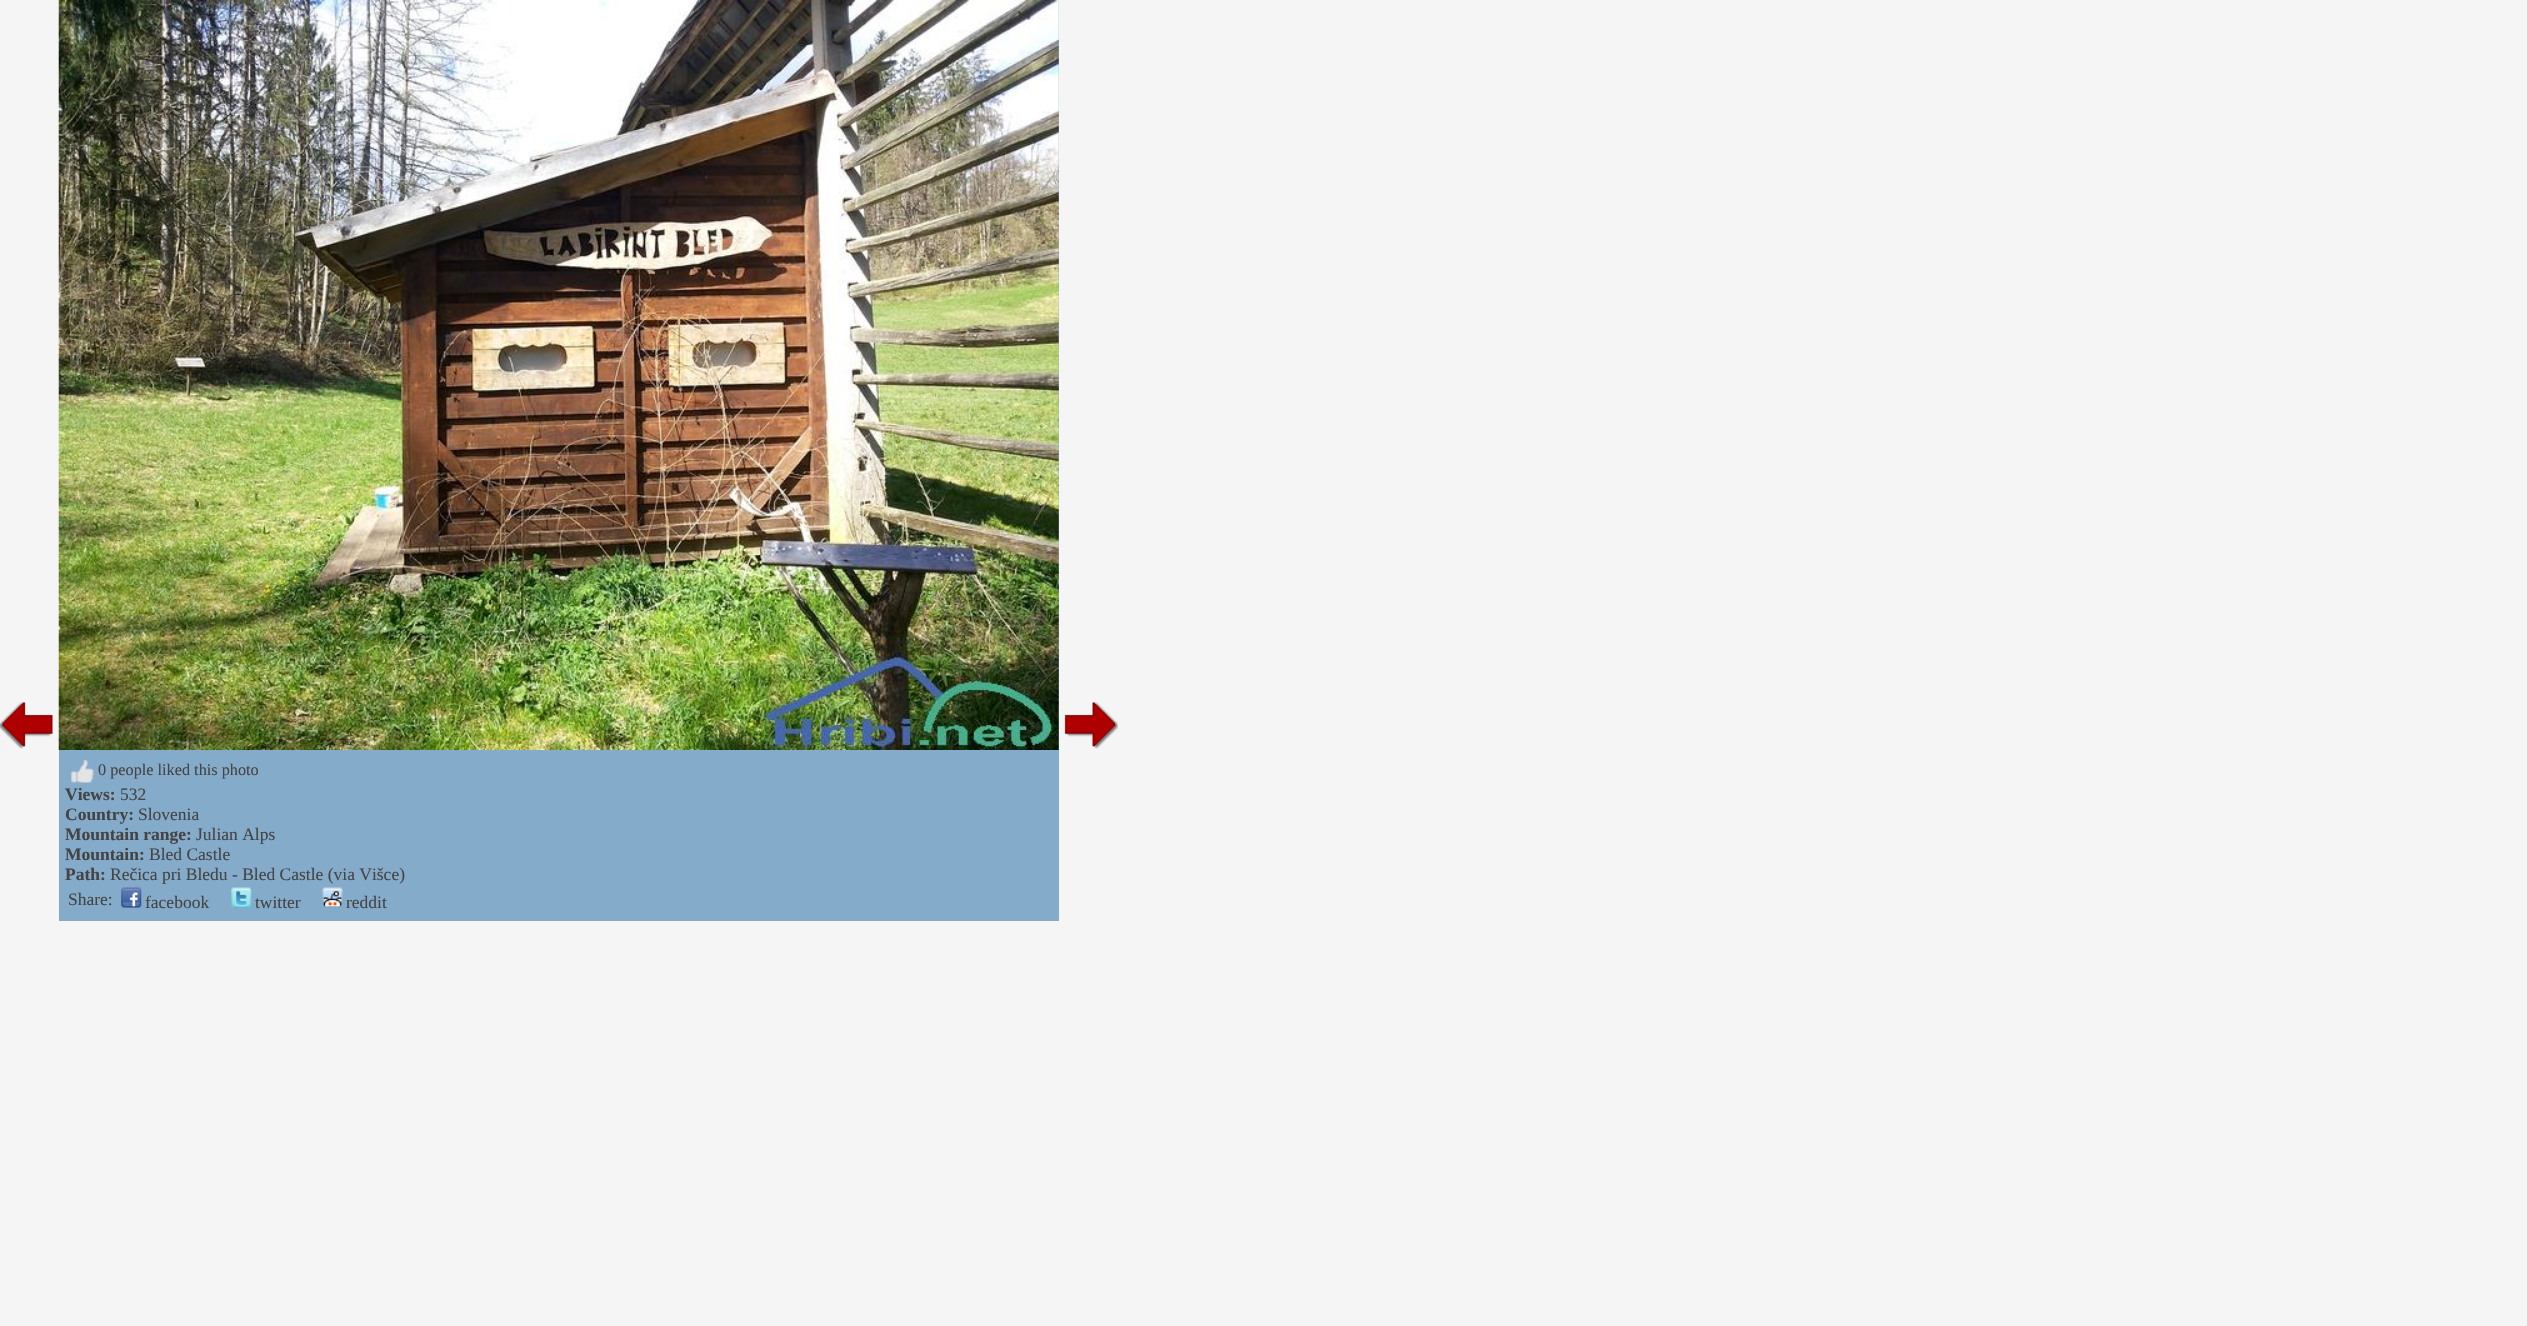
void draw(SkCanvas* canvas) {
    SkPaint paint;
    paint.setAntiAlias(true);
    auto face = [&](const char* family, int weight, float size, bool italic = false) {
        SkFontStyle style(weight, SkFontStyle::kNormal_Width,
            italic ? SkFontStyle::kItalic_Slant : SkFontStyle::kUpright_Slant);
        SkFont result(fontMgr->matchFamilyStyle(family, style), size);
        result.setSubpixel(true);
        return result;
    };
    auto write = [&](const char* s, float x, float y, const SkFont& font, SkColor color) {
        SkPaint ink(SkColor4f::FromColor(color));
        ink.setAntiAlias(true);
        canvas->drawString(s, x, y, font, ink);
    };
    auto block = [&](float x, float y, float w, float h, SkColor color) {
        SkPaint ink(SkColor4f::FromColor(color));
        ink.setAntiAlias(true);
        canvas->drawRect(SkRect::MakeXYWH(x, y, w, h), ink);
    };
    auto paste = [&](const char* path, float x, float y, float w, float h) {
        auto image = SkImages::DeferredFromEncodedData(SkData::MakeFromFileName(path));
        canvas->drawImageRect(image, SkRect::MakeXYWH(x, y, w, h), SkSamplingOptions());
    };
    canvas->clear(SkColorSetRGB(245, 245, 245));
    paste("pic1.png", 0, 702, 53, 47);
    paste("pic2.png", 1064, 702, 54, 47);
    block(59, 0, 1000, 921, SkColorSetRGB(133, 171, 202));
    paste("pic3.png", 58, 0, 1001, 750);
    paste("pic4.png", 71, 760, 23, 23);
    auto kFont1 = face("Liberation Serif", 400, 16.25f);
    write("0 people liked this photo", 98, 775, kFont1, SkColorSetRGB(68, 68, 68));
    auto kFont2 = face("Liberation Serif", 700, 17.5f);
    write("Views:", 65, 800, kFont2, SkColorSetRGB(68, 68, 68));
    auto kFont3 = face("Liberation Serif", 400, 17.5f);
    write("532", 120, 800, kFont3, SkColorSetRGB(68, 68, 68));
    write("Country:", 65, 820, kFont2, SkColorSetRGB(68, 68, 68));
    write("Slovenia", 138, 820, kFont3, SkColorSetRGB(68, 68, 68));
    write("Mountain range:", 65, 840, kFont2, SkColorSetRGB(68, 68, 68));
    write("Julian Alps", 196, 840, kFont3, SkColorSetRGB(68, 68, 68));
    write("Mountain:", 65, 860, kFont2, SkColorSetRGB(68, 68, 68));
    write("Bled Castle", 149, 860, kFont3, SkColorSetRGB(68, 68, 68));
    write("Path:", 65, 880, kFont2, SkColorSetRGB(68, 68, 68));
    write("Rečica pri Bledu - Bled Castle (via Višce)", 110, 880, kFont3, SkColorSetRGB(68, 68, 68));
    write("Share:", 68, 905, kFont3, SkColorSetRGB(68, 68, 68));
    paste("pic5.png", 121, 887, 21, 21);
    write("facebook", 145, 908, kFont3, SkColorSetRGB(68, 68, 68));
    paste("pic6.png", 231, 887, 21, 21);
    write("twitter", 255, 908, kFont3, SkColorSetRGB(68, 68, 68));
    paste("pic7.png", 322, 887, 21, 21);
    write("reddit", 346, 908, kFont3, SkColorSetRGB(68, 68, 68));
}
